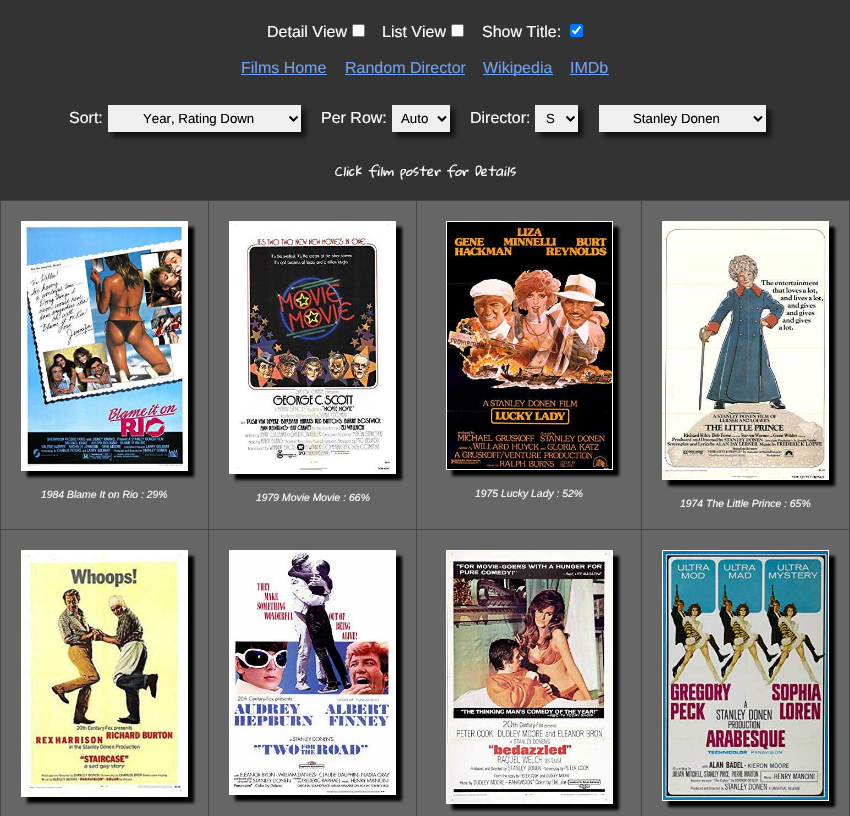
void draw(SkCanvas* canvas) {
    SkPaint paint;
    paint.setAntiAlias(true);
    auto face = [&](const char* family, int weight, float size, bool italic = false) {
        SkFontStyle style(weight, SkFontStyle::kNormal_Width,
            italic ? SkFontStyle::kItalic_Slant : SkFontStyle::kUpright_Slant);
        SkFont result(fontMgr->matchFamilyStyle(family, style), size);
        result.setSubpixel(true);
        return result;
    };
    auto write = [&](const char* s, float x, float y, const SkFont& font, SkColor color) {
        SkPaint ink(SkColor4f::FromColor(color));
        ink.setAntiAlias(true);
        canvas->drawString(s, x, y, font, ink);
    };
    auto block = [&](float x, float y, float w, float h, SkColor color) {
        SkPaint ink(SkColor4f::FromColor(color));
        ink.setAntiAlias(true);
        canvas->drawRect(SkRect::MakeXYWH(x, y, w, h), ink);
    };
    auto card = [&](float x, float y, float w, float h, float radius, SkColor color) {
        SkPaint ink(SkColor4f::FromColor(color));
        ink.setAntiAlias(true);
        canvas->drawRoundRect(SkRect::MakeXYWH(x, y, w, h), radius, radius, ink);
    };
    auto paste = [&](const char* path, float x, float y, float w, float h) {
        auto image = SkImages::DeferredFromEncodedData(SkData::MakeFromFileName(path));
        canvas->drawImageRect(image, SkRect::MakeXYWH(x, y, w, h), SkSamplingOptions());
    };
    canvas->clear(SkColorSetRGB(51, 51, 51));
    auto kFont1 = face("Liberation Sans", 400, 16);
    write("Detail View", 267, 37, kFont1, SK_ColorWHITE);
    paint.setColor(SK_ColorWHITE);
    canvas->drawRoundRect(SkRect::MakeXYWH(352.5f, 24.5f, 12, 12), 1.5f, 1.5f, paint);
    paint.setStyle(SkPaint::kStroke_Style);
    paint.setStrokeWidth(1);
    paint.setColor(SkColorSetRGB(118, 118, 118));
    canvas->drawRoundRect(SkRect::MakeXYWH(352.5f, 24.5f, 12, 12), 1.5f, 1.5f, paint);
    write("List View", 382, 37, kFont1, SK_ColorWHITE);
    paint.setStyle(SkPaint::kFill_Style);
    paint.setColor(SK_ColorWHITE);
    canvas->drawRoundRect(SkRect::MakeXYWH(451.5f, 24.5f, 12, 12), 1.5f, 1.5f, paint);
    paint.setStyle(SkPaint::kStroke_Style);
    paint.setColor(SkColorSetRGB(118, 118, 118));
    canvas->drawRoundRect(SkRect::MakeXYWH(451.5f, 24.5f, 12, 12), 1.5f, 1.5f, paint);
    write("Show Title:", 482, 37, kFont1, SK_ColorWHITE);
    card(570, 24, 13, 13, 2, SkColorSetRGB(0, 117, 255));
    paint.setStrokeWidth(2.1f);
    paint.setColor(SK_ColorWHITE);
    canvas->drawPath(SkPathBuilder().moveTo(572.5f, 30.5f).lineTo(575, 33).lineTo(580.5f, 26.5f).detach(), paint);
    write("Films Home", 241, 73, kFont1, SkColorSetRGB(111, 161, 242));
    block(241, 74, 86, 1, SkColorSetRGB(111, 161, 242));
    write("Random Director", 345, 73, kFont1, SkColorSetRGB(111, 161, 242));
    block(345, 74, 120, 1, SkColorSetRGB(111, 161, 242));
    block(483, 74, 70, 1, SkColorSetRGB(111, 161, 242));
    write("Wikipedia", 483, 73, kFont1, SkColorSetRGB(111, 161, 242));
    write("IMDb", 570, 73, kFont1, SkColorSetRGB(111, 161, 242));
    block(570, 74, 39, 1, SkColorSetRGB(111, 161, 242));
    write("Sort:", 69, 123, kFont1, SK_ColorWHITE);
    paint.setStyle(SkPaint::kFill_Style);
    paint.setColor(SkColorSetRGB(17, 17, 17));
    paint.setMaskFilter(SkMaskFilter::MakeBlur(kNormal_SkBlurStyle, 2.5f));
    canvas->drawRect(SkRect::MakeXYWH(113, 110, 193, 27), paint);
    paint.setMaskFilter(nullptr);
    block(108, 105, 193, 27, SkColorSetRGB(239, 239, 239));
    paint.setStyle(SkPaint::kStroke_Style);
    paint.setStrokeWidth(2);
    paint.setColor(SK_ColorBLACK);
    canvas->drawPath(SkPathBuilder().moveTo(289.5f, 116.5f).lineTo(293.5f, 120.5f).lineTo(297.5f, 116.5f).detach(), paint);
    auto kFont2 = face("Liberation Sans", 400, 13.25f);
    write("Year, Rating Down", 143, 123, kFont2, SK_ColorBLACK);
    write("Per Row:", 321, 123, kFont1, SK_ColorWHITE);
    paint.setStyle(SkPaint::kFill_Style);
    paint.setColor(SkColorSetRGB(17, 17, 17));
    paint.setMaskFilter(SkMaskFilter::MakeBlur(kNormal_SkBlurStyle, 2.5f));
    canvas->drawRect(SkRect::MakeXYWH(397, 110, 58, 27), paint);
    paint.setMaskFilter(nullptr);
    block(392, 105, 58, 27, SkColorSetRGB(239, 239, 239));
    paint.setStyle(SkPaint::kStroke_Style);
    paint.setColor(SK_ColorBLACK);
    canvas->drawPath(SkPathBuilder().moveTo(438, 116.5f).lineTo(442, 120.5f).lineTo(446, 116.5f).detach(), paint);
    write("Auto", 401, 123, kFont2, SK_ColorBLACK);
    write("Director:", 470, 123, kFont1, SK_ColorWHITE);
    paint.setStyle(SkPaint::kFill_Style);
    paint.setColor(SkColorSetRGB(17, 17, 17));
    paint.setMaskFilter(SkMaskFilter::MakeBlur(kNormal_SkBlurStyle, 2.5f));
    canvas->drawRect(SkRect::MakeXYWH(540, 110, 43, 27), paint);
    paint.setMaskFilter(nullptr);
    block(535, 105, 43, 27, SkColorSetRGB(239, 239, 239));
    paint.setStyle(SkPaint::kStroke_Style);
    paint.setColor(SK_ColorBLACK);
    canvas->drawPath(SkPathBuilder().moveTo(566.5f, 116.5f).lineTo(570.5f, 120.5f).lineTo(574.5f, 116.5f).detach(), paint);
    write("S", 546, 123, kFont2, SK_ColorBLACK);
    paint.setStyle(SkPaint::kFill_Style);
    paint.setColor(SkColorSetRGB(17, 17, 17));
    paint.setMaskFilter(SkMaskFilter::MakeBlur(kNormal_SkBlurStyle, 2.5f));
    canvas->drawRect(SkRect::MakeXYWH(604, 110, 167, 27), paint);
    paint.setMaskFilter(nullptr);
    block(599, 105, 167, 27, SkColorSetRGB(239, 239, 239));
    paint.setStyle(SkPaint::kStroke_Style);
    paint.setColor(SK_ColorBLACK);
    canvas->drawPath(SkPathBuilder().moveTo(754, 116.5f).lineTo(758, 120.5f).lineTo(762, 116.5f).detach(), paint);
    write("Stanley Donen", 633, 123, kFont2, SK_ColorBLACK);
    auto kFont3 = face("Gloria Hallelujah", 400, 13, true);
    write("Click film poster for Details", 334, 176, kFont3, SK_ColorWHITE);
    block(1, 201, 848, 615, SkColorSetRGB(102, 102, 102));
    block(641, 200, 209, 1, SkColorSetRGB(68, 68, 68));
    block(641, 529, 209, 1, SkColorSetRGB(68, 68, 68));
    block(641, 529, 1, 287, SkColorSetRGB(68, 68, 68));
    block(416, 529, 226, 1, SkColorSetRGB(68, 68, 68));
    block(641, 200, 1, 330, SkColorSetRGB(68, 68, 68));
    block(416, 200, 226, 1, SkColorSetRGB(68, 68, 68));
    block(416, 529, 1, 287, SkColorSetRGB(68, 68, 68));
    block(208, 529, 209, 1, SkColorSetRGB(68, 68, 68));
    block(416, 200, 1, 330, SkColorSetRGB(68, 68, 68));
    block(208, 200, 209, 1, SkColorSetRGB(68, 68, 68));
    block(208, 529, 1, 287, SkColorSetRGB(68, 68, 68));
    block(0, 529, 209, 1, SkColorSetRGB(68, 68, 68));
    block(208, 200, 1, 330, SkColorSetRGB(68, 68, 68));
    block(0, 200, 209, 1, SkColorSetRGB(68, 68, 68));
    block(0, 529, 1, 287, SkColorSetRGB(68, 68, 68));
    block(0, 200, 1, 330, SkColorSetRGB(68, 68, 68));
    paint.setStyle(SkPaint::kFill_Style);
    paint.setMaskFilter(SkMaskFilter::MakeBlur(kNormal_SkBlurStyle, 1.5f));
    canvas->drawRect(SkRect::MakeXYWH(27, 227, 167, 250), paint);
    paint.setMaskFilter(nullptr);
    block(21, 221, 167, 250, SK_ColorWHITE);
    paste("pic1.png", 22, 222, 165, 246);
    auto kFont4 = face("Liberation Sans", 400, 10.4f, true);
    write("1984 Blame It on Rio : 29%", 41, 498, kFont4, SK_ColorWHITE);
    paint.setMaskFilter(SkMaskFilter::MakeBlur(kNormal_SkBlurStyle, 1.5f));
    canvas->drawRect(SkRect::MakeXYWH(235, 227, 167, 253), paint);
    paint.setMaskFilter(nullptr);
    block(229, 221, 167, 253, SK_ColorWHITE);
    paste("pic2.png", 235, 222, 158, 251);
    write("1979 Movie Movie : 66%", 256, 501, kFont4, SK_ColorWHITE);
    paint.setMaskFilter(SkMaskFilter::MakeBlur(kNormal_SkBlurStyle, 1.5f));
    canvas->drawRect(SkRect::MakeXYWH(452, 227, 167, 249), paint);
    paint.setMaskFilter(nullptr);
    block(446, 221, 167, 249, SK_ColorWHITE);
    paste("pic3.png", 447, 222, 165, 247);
    write("1975 Lucky Lady : 52%", 475, 497, kFont4, SK_ColorWHITE);
    block(849, 529, 1, 287, SkColorSetRGB(68, 68, 68));
    block(849, 200, 1, 330, SkColorSetRGB(68, 68, 68));
    paint.setMaskFilter(SkMaskFilter::MakeBlur(kNormal_SkBlurStyle, 1.5f));
    canvas->drawRect(SkRect::MakeXYWH(668, 227, 167, 259), paint);
    paint.setMaskFilter(nullptr);
    block(662, 221, 167, 259, SK_ColorWHITE);
    paste("pic4.png", 663, 222, 165, 257);
    write("1974 The Little Prince : 65%", 680, 507, kFont4, SK_ColorWHITE);
    paint.setMaskFilter(SkMaskFilter::MakeBlur(kNormal_SkBlurStyle, 1.5f));
    canvas->drawRect(SkRect::MakeXYWH(27, 556, 167, 247), paint);
    paint.setMaskFilter(nullptr);
    block(21, 550, 167, 247, SK_ColorWHITE);
    paste("pic5.png", 22, 551, 165, 245);
    paint.setMaskFilter(SkMaskFilter::MakeBlur(kNormal_SkBlurStyle, 1.5f));
    canvas->drawRect(SkRect::MakeXYWH(235, 556, 167, 245), paint);
    paint.setMaskFilter(nullptr);
    block(229, 550, 167, 245, SK_ColorWHITE);
    paste("pic6.png", 230, 551, 163, 243);
    paint.setMaskFilter(SkMaskFilter::MakeBlur(kNormal_SkBlurStyle, 1.5f));
    canvas->drawRect(SkRect::MakeXYWH(452, 556, 167, 254), paint);
    paint.setMaskFilter(nullptr);
    block(446, 550, 167, 254, SK_ColorWHITE);
    paste("pic7.png", 447, 551, 165, 252);
    paint.setMaskFilter(SkMaskFilter::MakeBlur(kNormal_SkBlurStyle, 1.5f));
    canvas->drawRect(SkRect::MakeXYWH(668, 556, 167, 251), paint);
    paint.setMaskFilter(nullptr);
    block(662, 550, 167, 251, SK_ColorWHITE);
    paste("pic8.png", 663, 551, 165, 249);
}
